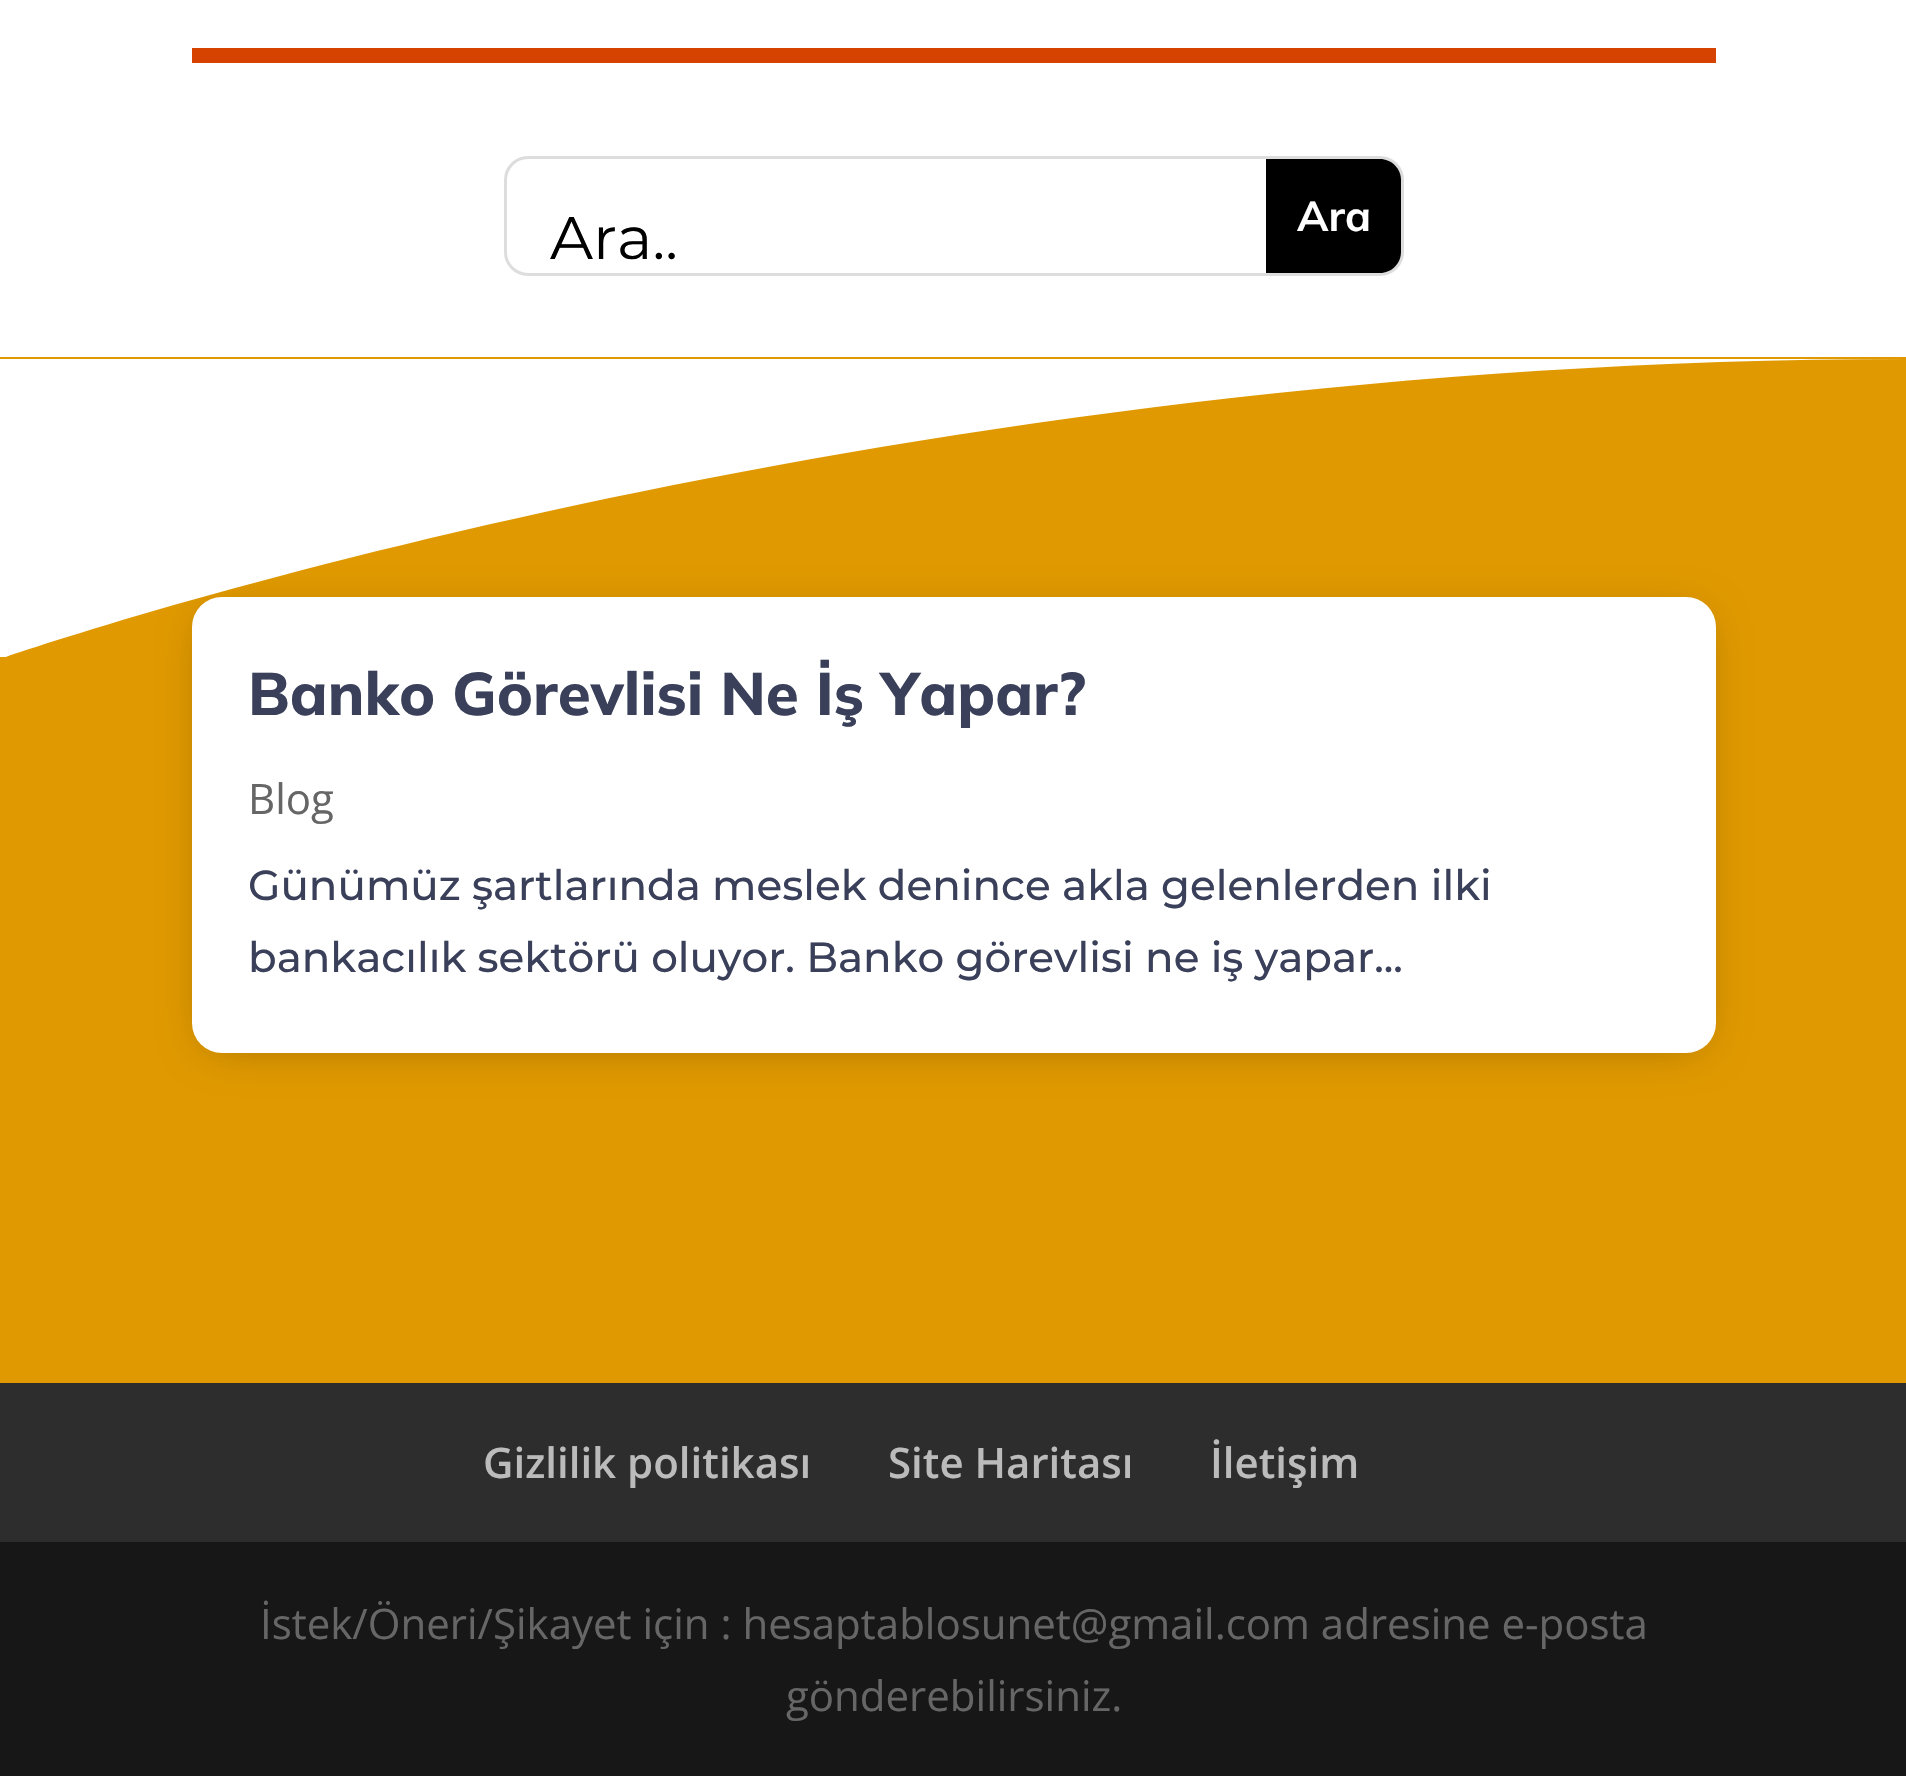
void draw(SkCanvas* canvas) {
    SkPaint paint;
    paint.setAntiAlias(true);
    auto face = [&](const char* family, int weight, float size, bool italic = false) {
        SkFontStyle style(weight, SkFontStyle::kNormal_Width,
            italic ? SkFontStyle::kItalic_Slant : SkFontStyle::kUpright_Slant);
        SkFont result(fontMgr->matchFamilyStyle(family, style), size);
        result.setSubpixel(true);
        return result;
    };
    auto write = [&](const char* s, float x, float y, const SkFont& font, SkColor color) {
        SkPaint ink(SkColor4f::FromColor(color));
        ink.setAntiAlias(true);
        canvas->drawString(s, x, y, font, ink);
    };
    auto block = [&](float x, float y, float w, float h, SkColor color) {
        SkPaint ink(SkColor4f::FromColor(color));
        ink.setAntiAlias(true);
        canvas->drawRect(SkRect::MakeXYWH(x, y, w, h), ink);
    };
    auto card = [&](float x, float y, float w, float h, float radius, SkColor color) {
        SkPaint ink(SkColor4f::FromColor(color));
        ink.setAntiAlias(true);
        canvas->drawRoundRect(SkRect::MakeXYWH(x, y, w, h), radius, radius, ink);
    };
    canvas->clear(SK_ColorWHITE);
    block(192, 48, 1524, 15, SkColorSetRGB(214, 67, 0));
    paint.setStyle(SkPaint::kStroke_Style);
    paint.setStrokeWidth(3);
    paint.setColor(SkColorSetRGB(221, 221, 221));
    canvas->drawRoundRect(SkRect::MakeXYWH(505.5f, 157.5f, 897, 117), 22.5f, 22.5f, paint);
    auto kFont1 = face("Montserrat", 400, 60);
    write("Ara..", 550, 259, kFont1, SK_ColorBLACK);
    paint.setStyle(SkPaint::kFill_Style);
    paint.setColor(SK_ColorBLACK);
    canvas->drawPath(SkPathBuilder().moveTo(1266, 159).lineTo(1380, 159).cubicTo(1391.5f, 159, 1401, 168.5f, 1401, 180).lineTo(1401, 252).cubicTo(1401, 263.5f, 1391.5f, 273, 1380, 273).lineTo(1266, 273).close().detach(), paint);
    auto kFont2 = face("Mulish", 700, 42);
    write("Ara", 1297, 231, kFont2, SK_ColorWHITE);
    block(0, 357, 1906, 1026, SkColorSetRGB(224, 153, 0));
    paint.setColor(SkColorSetARGB(77, 0, 0, 0));
    paint.setMaskFilter(SkMaskFilter::MakeBlur(kNormal_SkBlurStyle, 22.5f));
    canvas->drawRoundRect(SkRect::MakeXYWH(207, 618, 1494, 426), 15, 15, paint);
    paint.setMaskFilter(nullptr);
    card(192, 597, 1524, 456, 30, SK_ColorWHITE);
    canvas->save();
    canvas->clipRect(SkRect::MakeXYWH(0, 357, 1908, 300));
    paint.setColor(SK_ColorWHITE);
    canvas->drawPath(SkPathBuilder().moveTo(0, 359).lineTo(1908, 359).cubicTo(854, 359, 0, 659, 0, 659).close().detach(), paint);
    canvas->restore();
    auto kFont3 = face("Mulish", 800, 60);
    write("Banko Görevlisi Ne İş Yapar?", 248, 715, kFont3, SkColorSetRGB(58, 64, 90));
    auto kFont4 = face("Open Sans", 400, 42);
    write("Blog", 248, 814, kFont4, SkColorSetRGB(102, 102, 102));
    auto kFont5 = face("Montserrat", 500, 42);
    write("Günümüz şartlarında meslek denince akla gelenlerden ilki", 248, 900, kFont5, SkColorSetRGB(58, 64, 90));
    write("bankacılık sektörü oluyor. Banko görevlisi ne iş yapar...", 248, 972, kFont5, SkColorSetRGB(58, 64, 90));
    block(0, 1383, 1906, 159, SkColorSetRGB(45, 45, 45));
    auto kFont6 = face("Open Sans", 600, 42);
    write("Gizlilik politikası", 483, 1478, kFont6, SkColorSetRGB(187, 187, 187));
    write("Site Haritası", 888, 1478, kFont6, SkColorSetRGB(187, 187, 187));
    write("İletişim", 1210, 1478, kFont6, SkColorSetRGB(187, 187, 187));
    block(0, 1542, 1906, 234, SkColorSetRGB(23, 23, 23));
    write("İstek/Öneri/Şikayet için : hesaptablosunet@gmail.com adresine e-posta", 260, 1639, kFont4, SkColorSetRGB(102, 102, 102));
    write("gönderebilirsiniz.", 786, 1711, kFont4, SkColorSetRGB(102, 102, 102));
}
